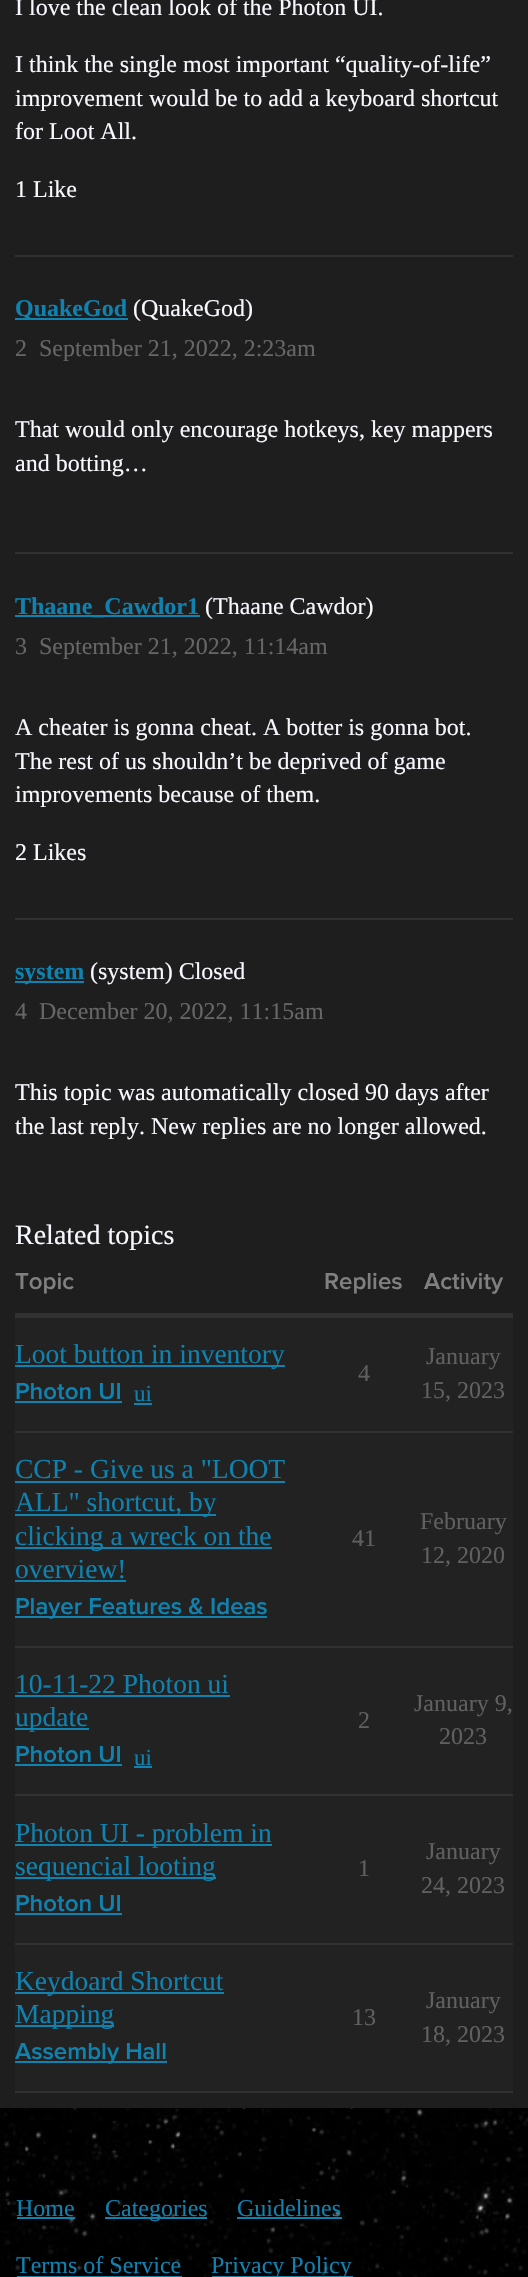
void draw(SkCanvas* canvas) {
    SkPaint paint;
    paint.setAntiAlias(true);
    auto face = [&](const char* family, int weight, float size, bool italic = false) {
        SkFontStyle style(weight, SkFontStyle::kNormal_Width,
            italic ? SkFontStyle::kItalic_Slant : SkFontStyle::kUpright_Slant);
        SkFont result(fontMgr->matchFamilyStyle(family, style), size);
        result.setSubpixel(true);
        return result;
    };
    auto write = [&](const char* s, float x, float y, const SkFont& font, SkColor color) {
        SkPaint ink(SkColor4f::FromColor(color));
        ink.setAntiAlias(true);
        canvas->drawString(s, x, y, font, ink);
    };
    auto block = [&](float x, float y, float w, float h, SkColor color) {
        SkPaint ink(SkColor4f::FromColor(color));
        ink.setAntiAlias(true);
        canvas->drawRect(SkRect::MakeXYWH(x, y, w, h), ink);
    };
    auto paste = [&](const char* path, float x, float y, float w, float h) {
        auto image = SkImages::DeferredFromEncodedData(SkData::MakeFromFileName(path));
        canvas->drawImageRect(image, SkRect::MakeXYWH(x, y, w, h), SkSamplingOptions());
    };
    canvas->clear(SK_ColorWHITE);
    paste("pic1.png", 0, 2108, 528, 169);
    block(0, 0, 528, 2108, SkColorSetRGB(30, 30, 30));
    auto kFont1 = face("Liberation Serif", 400, 24);
    write("I love the clean look of the Photon UI.", 15, 15, kFont1, SkColorSetRGB(248, 248, 255));
    write("I think the single most important “quality-of-life”", 15, 72, kFont1, SkColorSetRGB(248, 248, 255));
    write("improvement would be to add a keyboard shortcut", 15, 106, kFont1, SkColorSetRGB(248, 248, 255));
    write("for Loot All.", 15, 139, kFont1, SkColorSetRGB(248, 248, 255));
    write("1 Like", 15, 197, kFont1, SkColorSetRGB(248, 248, 255));
    block(15, 255, 498, 2, SkColorSetRGB(49, 49, 49));
    block(15, 318, 113, 2, SkColorSetRGB(15, 130, 175));
    auto kFont2 = face("Liberation Serif", 700, 24);
    write("QuakeGod", 15, 316, kFont2, SkColorSetRGB(15, 130, 175));
    write("(QuakeGod)", 133, 316, kFont1, SkColorSetRGB(248, 248, 255));
    write("2", 15, 356, kFont1, SkColorSetRGB(102, 102, 102));
    write("September 21, 2022, 2:23am", 39, 356, kFont1, SkColorSetRGB(102, 102, 102));
    write("That would only encourage hotkeys, key mappers", 15, 437, kFont1, SkColorSetRGB(248, 248, 255));
    write("and botting…", 15, 471, kFont1, SkColorSetRGB(248, 248, 255));
    block(15, 552, 498, 2, SkColorSetRGB(49, 49, 49));
    block(15, 615, 185, 2, SkColorSetRGB(15, 130, 175));
    write("Thaane_Cawdor1", 15, 614, kFont2, SkColorSetRGB(15, 130, 175));
    write("(Thaane Cawdor)", 205, 614, kFont1, SkColorSetRGB(248, 248, 255));
    write("3", 15, 654, kFont1, SkColorSetRGB(102, 102, 102));
    write("September 21, 2022, 11:14am", 39, 654, kFont1, SkColorSetRGB(102, 102, 102));
    write("A cheater is gonna cheat. A botter is gonna bot.", 15, 735, kFont1, SkColorSetRGB(248, 248, 255));
    write("The rest of us shouldn’t be deprived of game", 15, 769, kFont1, SkColorSetRGB(248, 248, 255));
    write("improvements because of them.", 15, 802, kFont1, SkColorSetRGB(248, 248, 255));
    write("2 Likes", 15, 860, kFont1, SkColorSetRGB(248, 248, 255));
    block(15, 918, 498, 2, SkColorSetRGB(49, 49, 49));
    block(15, 981, 69, 2, SkColorSetRGB(15, 130, 175));
    write("system", 15, 979, kFont2, SkColorSetRGB(15, 130, 175));
    write("(system) Closed", 90, 979, kFont1, SkColorSetRGB(248, 248, 255));
    write("4", 15, 1019, kFont1, SkColorSetRGB(102, 102, 102));
    write("December 20, 2022, 11:15am", 39, 1019, kFont1, SkColorSetRGB(102, 102, 102));
    write("This topic was automatically closed 90 days after", 15, 1100, kFont1, SkColorSetRGB(248, 248, 255));
    write("the last reply. New replies are no longer allowed.", 15, 1134, kFont1, SkColorSetRGB(248, 248, 255));
    auto kFont3 = face("Liberation Serif", 400, 28);
    write("Related topics", 15, 1244, kFont3, SkColorSetRGB(248, 248, 255));
    auto kFont4 = face("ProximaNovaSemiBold", 600, 24);
    write("Topic", 15, 1289, kFont4, SkColorSetRGB(128, 128, 128));
    write("Replies", 324, 1289, kFont4, SkColorSetRGB(128, 128, 128));
    write("Activity", 424, 1289, kFont4, SkColorSetRGB(128, 128, 128));
    block(15, 1313, 498, 5, SkColorSetRGB(49, 49, 49));
    block(15, 1318, 498, 113, SkColorSetRGB(34, 34, 34));
    block(15, 1431, 498, 2, SkColorSetRGB(49, 49, 49));
    block(15, 1365, 270, 2, SkColorSetRGB(15, 130, 175));
    auto kFont5 = face("Liberation Serif", 400, 27.5f);
    write("Loot button in inventory", 15, 1363, kFont5, SkColorSetRGB(15, 130, 175));
    write("Photon UI", 15, 1399, kFont4, SkColorSetRGB(15, 130, 175));
    block(15, 1401, 107, 2, SkColorSetRGB(15, 130, 175));
    auto kFont6 = face("Liberation Serif", 400, 23);
    write("ui", 134, 1401, kFont6, SkColorSetRGB(15, 130, 175));
    block(134, 1403, 18, 2, SkColorSetRGB(15, 130, 175));
    write("4", 358, 1381, kFont1, SkColorSetRGB(96, 96, 96));
    write("January", 426, 1364, kFont1, SkColorSetRGB(96, 96, 96));
    write("15, 2023", 421, 1398, kFont1, SkColorSetRGB(96, 96, 96));
    block(15, 1433, 498, 213, SkColorSetRGB(34, 34, 34));
    block(15, 1646, 498, 2, SkColorSetRGB(49, 49, 49));
    write("CCP - Give us a \"LOOT", 15, 1478, kFont5, SkColorSetRGB(15, 130, 175));
    block(15, 1481, 270, 2, SkColorSetRGB(15, 130, 175));
    block(15, 1514, 201, 2, SkColorSetRGB(15, 130, 175));
    write("ALL\" shortcut, by", 15, 1511, kFont5, SkColorSetRGB(15, 130, 175));
    block(15, 1547, 257, 2, SkColorSetRGB(15, 130, 175));
    write("clicking a wreck on the", 15, 1545, kFont5, SkColorSetRGB(15, 130, 175));
    write("overview!", 15, 1578, kFont5, SkColorSetRGB(15, 130, 175));
    block(15, 1580, 111, 2, SkColorSetRGB(15, 130, 175));
    block(15, 1616, 252, 2, SkColorSetRGB(15, 130, 175));
    write("Player Features & Ideas", 15, 1614, kFont4, SkColorSetRGB(15, 130, 175));
    write("41", 352, 1546, kFont1, SkColorSetRGB(96, 96, 96));
    write("February", 420, 1529, kFont1, SkColorSetRGB(96, 96, 96));
    write("12, 2020", 421, 1563, kFont1, SkColorSetRGB(96, 96, 96));
    block(15, 1648, 498, 146, SkColorSetRGB(34, 34, 34));
    block(15, 1794, 498, 2, SkColorSetRGB(49, 49, 49));
    write("10-11-22 Photon ui", 15, 1693, kFont5, SkColorSetRGB(15, 130, 175));
    block(15, 1695, 215, 2, SkColorSetRGB(15, 130, 175));
    block(15, 1728, 74, 2, SkColorSetRGB(15, 130, 175));
    write("update", 15, 1726, kFont5, SkColorSetRGB(15, 130, 175));
    write("Photon UI", 15, 1762, kFont4, SkColorSetRGB(15, 130, 175));
    block(15, 1764, 107, 2, SkColorSetRGB(15, 130, 175));
    write("ui", 134, 1765, kFont6, SkColorSetRGB(15, 130, 175));
    block(134, 1766, 18, 2, SkColorSetRGB(15, 130, 175));
    write("2", 358, 1728, kFont1, SkColorSetRGB(96, 96, 96));
    write("January 9,", 414, 1711, kFont1, SkColorSetRGB(96, 96, 96));
    write("2023", 439, 1744, kFont1, SkColorSetRGB(96, 96, 96));
    block(15, 1796, 498, 147, SkColorSetRGB(34, 34, 34));
    block(15, 1943, 498, 2, SkColorSetRGB(49, 49, 49));
    block(15, 1844, 257, 2, SkColorSetRGB(15, 130, 175));
    write("Photon UI - problem in", 15, 1842, kFont5, SkColorSetRGB(15, 130, 175));
    block(15, 1877, 201, 2, SkColorSetRGB(15, 130, 175));
    write("sequencial looting", 15, 1875, kFont5, SkColorSetRGB(15, 130, 175));
    write("Photon UI", 15, 1911, kFont4, SkColorSetRGB(15, 130, 175));
    block(15, 1913, 107, 2, SkColorSetRGB(15, 130, 175));
    write("1", 358, 1876, kFont1, SkColorSetRGB(96, 96, 96));
    write("January", 426, 1859, kFont1, SkColorSetRGB(96, 96, 96));
    write("24, 2023", 421, 1893, kFont1, SkColorSetRGB(96, 96, 96));
    block(15, 1945, 498, 146, SkColorSetRGB(34, 34, 34));
    block(15, 2091, 498, 2, SkColorSetRGB(49, 49, 49));
    block(15, 1992, 209, 2, SkColorSetRGB(15, 130, 175));
    write("Keydoard Shortcut", 15, 1990, kFont5, SkColorSetRGB(15, 130, 175));
    block(15, 2025, 99, 2, SkColorSetRGB(15, 130, 175));
    write("Mapping", 15, 2023, kFont5, SkColorSetRGB(15, 130, 175));
    block(15, 2061, 152, 2, SkColorSetRGB(15, 130, 175));
    write("Assembly Hall", 15, 2059, kFont4, SkColorSetRGB(15, 130, 175));
    write("13", 352, 2025, kFont1, SkColorSetRGB(96, 96, 96));
    write("January", 426, 2008, kFont1, SkColorSetRGB(96, 96, 96));
    write("18, 2023", 421, 2042, kFont1, SkColorSetRGB(96, 96, 96));
    write("Home", 16, 2216, kFont1, SkColorSetRGB(15, 130, 175));
    block(17, 2217, 58, 2, SkColorSetRGB(15, 130, 175));
    block(105, 2217, 102, 2, SkColorSetRGB(15, 130, 175));
    write("Categories", 105, 2216, kFont1, SkColorSetRGB(15, 130, 175));
    write("Guidelines", 237, 2216, kFont1, SkColorSetRGB(15, 130, 175));
    block(237, 2217, 105, 2, SkColorSetRGB(15, 130, 175));
    write("Terms of Service", 16, 2273, kFont1, SkColorSetRGB(15, 130, 175));
    block(17, 2276, 165, 1, SkColorSetRGB(15, 130, 175));
    block(212, 2276, 141, 1, SkColorSetRGB(15, 130, 175));
    write("Privacy Policy", 211, 2273, kFont1, SkColorSetRGB(15, 130, 175));
}
